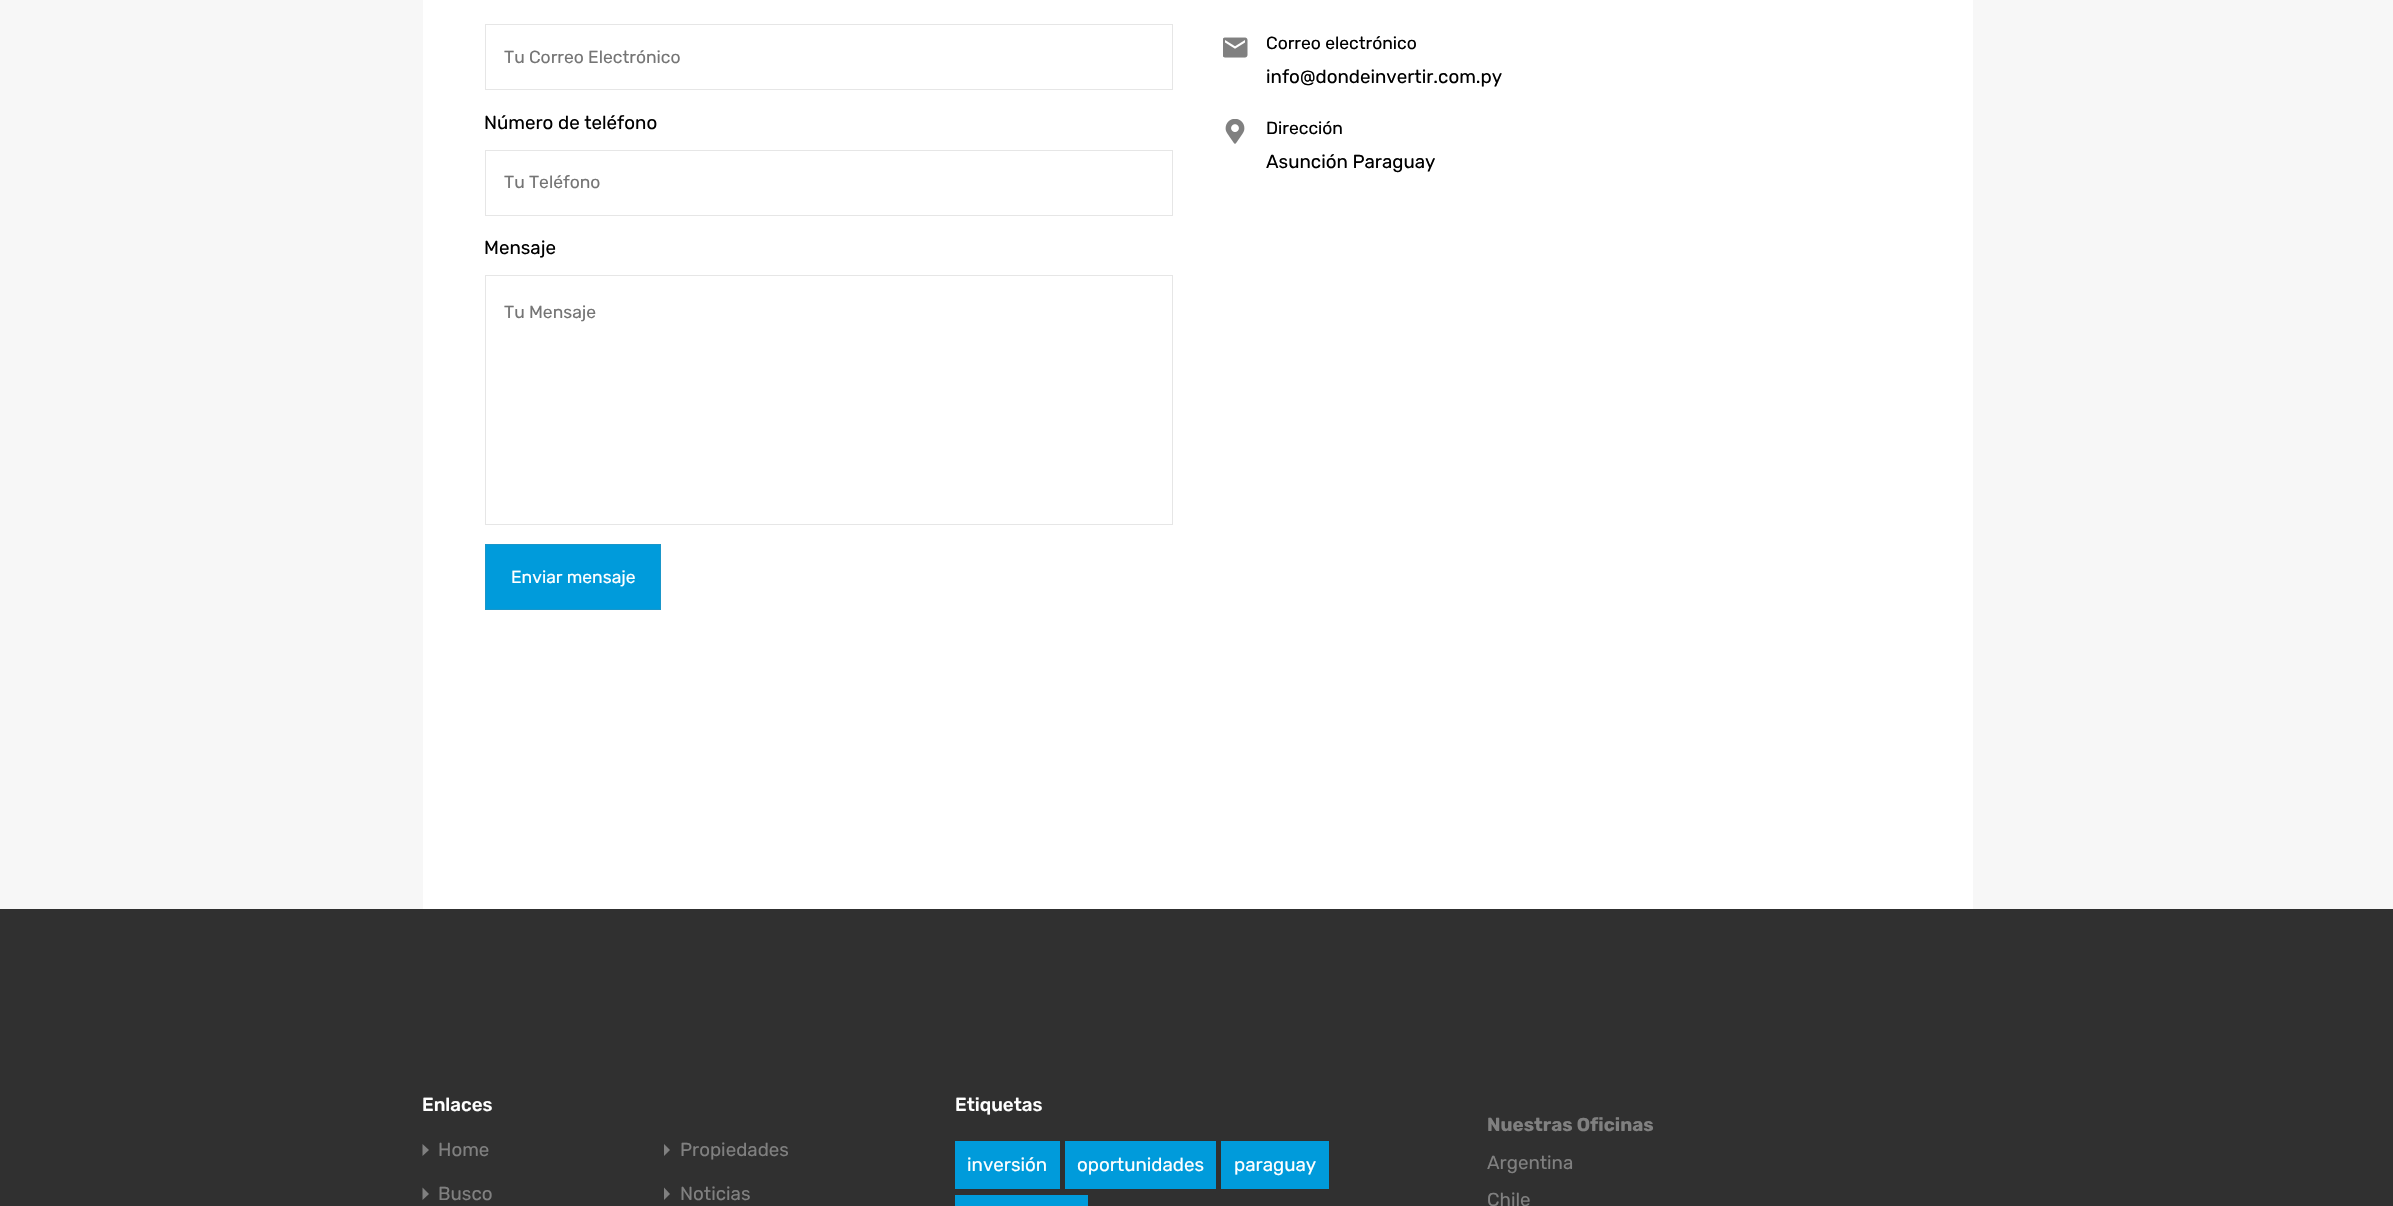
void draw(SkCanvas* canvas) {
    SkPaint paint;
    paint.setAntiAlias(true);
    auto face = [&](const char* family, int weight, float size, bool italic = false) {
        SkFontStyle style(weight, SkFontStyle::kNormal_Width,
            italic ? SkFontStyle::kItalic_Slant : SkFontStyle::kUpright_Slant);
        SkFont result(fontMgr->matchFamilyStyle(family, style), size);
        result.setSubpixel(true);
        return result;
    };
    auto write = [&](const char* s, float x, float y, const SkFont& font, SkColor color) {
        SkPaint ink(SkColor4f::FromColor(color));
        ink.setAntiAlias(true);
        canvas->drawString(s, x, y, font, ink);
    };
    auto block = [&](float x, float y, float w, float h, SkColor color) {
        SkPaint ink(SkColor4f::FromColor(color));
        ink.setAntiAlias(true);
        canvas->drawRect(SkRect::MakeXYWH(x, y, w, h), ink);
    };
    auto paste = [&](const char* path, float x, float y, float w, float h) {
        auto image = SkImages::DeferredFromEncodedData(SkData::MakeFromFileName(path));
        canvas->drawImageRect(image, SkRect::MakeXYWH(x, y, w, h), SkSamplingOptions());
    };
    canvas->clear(SkColorSetRGB(247, 247, 247));
    block(423, 0, 1550, 909, SK_ColorWHITE);
    paint.setStyle(SkPaint::kStroke_Style);
    paint.setStrokeWidth(1);
    paint.setColor(SkColorSetRGB(230, 230, 230));
    canvas->drawRect(SkRect::MakeXYWH(485.5f, 24.5f, 687, 65), paint);
    auto kFont1 = face("Rubik", 400, 17.5f);
    write("Tu Correo Electrónico", 504, 63, kFont1, SkColorSetRGB(117, 117, 117));
    auto kFont2 = face("Rubik", 400, 18.75f);
    write("Número de teléfono", 484, 129, kFont2, SK_ColorBLACK);
    canvas->drawRect(SkRect::MakeXYWH(485.5f, 150.5f, 687, 65), paint);
    write("Tu Teléfono", 504, 188, kFont1, SkColorSetRGB(117, 117, 117));
    write("Mensaje", 484, 254, kFont2, SK_ColorBLACK);
    canvas->drawRect(SkRect::MakeXYWH(485.5f, 275.5f, 687, 249), paint);
    write("Tu Mensaje", 504, 318, kFont1, SkColorSetRGB(117, 117, 117));
    paint.setStyle(SkPaint::kFill_Style);
    paint.setColor(SkColorSetRGB(0, 155, 219));
    canvas->drawRect(SkRect::MakeXYWH(485.5f, 544.5f, 175, 65), paint);
    paint.setStyle(SkPaint::kStroke_Style);
    paint.setColor(SkColorSetRGB(26, 150, 201));
    canvas->drawRect(SkRect::MakeXYWH(485.5f, 544.5f, 175, 65), paint);
    write("Enviar mensaje", 511, 583, kFont1, SK_ColorWHITE);
    paste("pic1.png", 1223, 37, 25, 21);
    write("Correo electrónico", 1266, 49, kFont1, SK_ColorBLACK);
    write("info@dondeinvertir.com.py", 1266, 83, kFont2, SK_ColorBLACK);
    paste("pic2.png", 1225, 119, 20, 25);
    write("Dirección", 1266, 134, kFont1, SK_ColorBLACK);
    write("Asunción Paraguay", 1266, 168, kFont2, SK_ColorBLACK);
    block(0, 909, 2393, 297, SkColorSetRGB(48, 48, 48));
    auto kFont3 = face("Rubik", 500, 18.75f);
    write("Enlaces", 422, 1111, kFont3, SK_ColorWHITE);
    paint.setStyle(SkPaint::kFill_Style);
    paint.setColor(SkColorSetRGB(128, 128, 128));
    canvas->drawPath(SkPathBuilder().moveTo(422.5f, 1156).lineTo(422.5f, 1144).lineTo(429, 1150).close().detach(), paint);
    write("Home", 438, 1156, kFont2, SkColorSetRGB(128, 128, 128));
    canvas->drawPath(SkPathBuilder().moveTo(664, 1156).lineTo(664, 1144).lineTo(670, 1150).close().detach(), paint);
    write("Propiedades", 680, 1156, kFont2, SkColorSetRGB(128, 128, 128));
    canvas->drawPath(SkPathBuilder().moveTo(422.5f, 1200).lineTo(422.5f, 1187.5f).lineTo(429, 1194).close().detach(), paint);
    write("Busco", 438, 1200, kFont2, SkColorSetRGB(128, 128, 128));
    canvas->drawPath(SkPathBuilder().moveTo(664, 1200).lineTo(664, 1187.5f).lineTo(670, 1194).close().detach(), paint);
    write("Noticias", 680, 1200, kFont2, SkColorSetRGB(128, 128, 128));
    write("Etiquetas", 955, 1111, kFont3, SK_ColorWHITE);
    block(955, 1141, 105, 48, SkColorSetRGB(0, 155, 219));
    write("inversión", 967, 1171, kFont2, SK_ColorWHITE);
    block(1065, 1141, 151, 48, SkColorSetRGB(0, 155, 219));
    write("oportunidades", 1077, 1171, kFont2, SK_ColorWHITE);
    block(1221, 1141, 108, 48, SkColorSetRGB(0, 155, 219));
    write("paraguay", 1234, 1171, kFont2, SK_ColorWHITE);
    block(955, 1195, 133, 11, SkColorSetRGB(0, 155, 219));
    auto kFont4 = face("Rubik", 700, 18.75f);
    write("Nuestras Oficinas", 1487, 1131, kFont4, SkColorSetRGB(128, 128, 128));
    write("Argentina", 1487, 1169, kFont2, SkColorSetRGB(128, 128, 128));
    write("Chile", 1487, 1206, kFont2, SkColorSetRGB(128, 128, 128));
}
